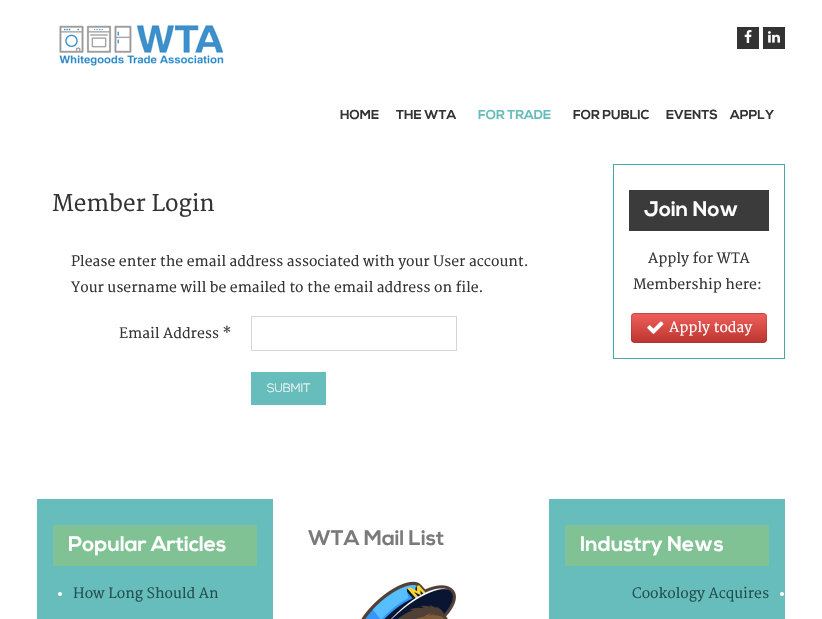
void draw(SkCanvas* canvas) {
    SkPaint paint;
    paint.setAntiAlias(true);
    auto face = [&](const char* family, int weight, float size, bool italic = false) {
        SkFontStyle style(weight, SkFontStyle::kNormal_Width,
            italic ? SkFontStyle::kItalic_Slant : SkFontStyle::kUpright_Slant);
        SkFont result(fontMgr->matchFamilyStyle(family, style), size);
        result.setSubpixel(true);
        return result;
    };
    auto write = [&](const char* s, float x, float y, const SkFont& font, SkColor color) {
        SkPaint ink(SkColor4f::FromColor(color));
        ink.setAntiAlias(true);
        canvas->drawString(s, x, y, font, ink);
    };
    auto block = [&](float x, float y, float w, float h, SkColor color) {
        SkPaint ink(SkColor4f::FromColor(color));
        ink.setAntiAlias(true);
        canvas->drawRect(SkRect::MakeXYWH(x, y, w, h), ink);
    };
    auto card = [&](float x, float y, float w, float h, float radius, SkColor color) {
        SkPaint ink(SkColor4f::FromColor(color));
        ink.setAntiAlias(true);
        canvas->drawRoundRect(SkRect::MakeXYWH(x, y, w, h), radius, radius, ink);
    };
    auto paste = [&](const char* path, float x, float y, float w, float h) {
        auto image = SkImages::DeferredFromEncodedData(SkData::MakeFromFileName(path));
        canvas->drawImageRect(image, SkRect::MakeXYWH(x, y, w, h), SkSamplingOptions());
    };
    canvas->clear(SK_ColorWHITE);
    paste("pic1.png", 59, 25, 165, 41);
    block(737, 27, 22, 22, SkColorSetRGB(51, 51, 51));
    paste("pic2.png", 744, 30, 8, 13);
    block(763, 27, 22, 22, SkColorSetRGB(51, 51, 51));
    paste("pic3.png", 768, 31, 12, 12);
    auto kFont1 = face("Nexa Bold", 700, 13);
    write("HOME", 340, 119, kFont1, SkColorSetRGB(51, 51, 51));
    write("THE WTA", 396, 119, kFont1, SkColorSetRGB(51, 51, 51));
    write("FOR TRADE", 478, 119, kFont1, SkColorSetRGB(102, 189, 187));
    write("FOR PUBLIC", 573, 119, kFont1, SkColorSetRGB(51, 51, 51));
    write("EVENTS", 666, 119, kFont1, SkColorSetRGB(51, 51, 51));
    write("APPLY", 730, 119, kFont1, SkColorSetRGB(51, 51, 51));
    auto kFont2 = face("Merriweather", 200, 22.5f);
    write("Member Login", 52, 211, kFont2, SkColorSetRGB(51, 51, 51));
    auto kFont3 = face("Merriweather", 200, 14);
    write("Please enter the email address associated with your User account.", 71, 266, kFont3, SkColorSetRGB(51, 51, 51));
    write("Your username will be emailed to the email address on file.", 71, 292, kFont3, SkColorSetRGB(51, 51, 51));
    write("Email Address *", 119, 338, kFont3, SkColorSetRGB(51, 51, 51));
    paint.setStyle(SkPaint::kStroke_Style);
    paint.setStrokeWidth(1);
    paint.setColor(SkColorSetRGB(213, 213, 213));
    canvas->drawRect(SkRect::MakeXYWH(251.5f, 316.5f, 205, 34), paint);
    block(251, 372, 75, 33, SkColorSetRGB(102, 189, 187));
    auto kFont4 = face("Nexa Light", 300, 12);
    write("SUBMIT", 267, 392, kFont4, SK_ColorWHITE);
    paint.setColor(SkColorSetRGB(72, 168, 165));
    canvas->drawRect(SkRect::MakeXYWH(613.5f, 164.5f, 171, 194), paint);
    block(629, 190, 140, 41, SkColorSetRGB(59, 59, 59));
    auto kFont5 = face("Nexa Bold", 700, 21);
    write("Join Now", 644, 216, kFont5, SK_ColorWHITE);
    write("Apply for WTA", 648, 263, kFont3, SkColorSetRGB(51, 51, 51));
    write("Membership here:", 633, 289, kFont3, SkColorSetRGB(51, 51, 51));
    card(631, 313, 136, 30, 4, SkColorSetRGB(218, 79, 73));
    canvas->save();
    canvas->clipPath(SkPathBuilder().moveTo(635, 313).lineTo(763, 313).cubicTo(765, 313, 767, 315, 767, 317).lineTo(767, 339).cubicTo(767, 341, 765, 343, 763, 343).lineTo(635, 343).cubicTo(633, 343, 631, 341, 631, 339).lineTo(631, 317).cubicTo(631, 315, 633, 313, 635, 313).close().detach(), true);
    paint.setStyle(SkPaint::kFill_Style);
    {
        const SkColor colors[] = {SkColorSetRGB(238, 95, 91), SkColorSetRGB(189, 54, 47)};
        const float stops[] = {0, 1};
        const SkPoint ends[] = {{699, 314}, {699, 342}};
        paint.setShader(SkGradientShader::MakeLinear(ends, colors, stops, 2, SkTileMode::kClamp));
        paint.setAlpha(255);
    }
    canvas->drawRect(SkRect::MakeXYWH(631, 314, 136, 28), paint);
    canvas->restore();
    paint.setStyle(SkPaint::kStroke_Style);
    paint.setShader(nullptr);
    paint.setColor(SkColorSetARGB(64, 0, 0, 0));
    canvas->drawPath(SkPathBuilder().moveTo(765.5f, 341.5f).cubicTo(765, 342, 764, 342.5f, 763, 342.5f).lineTo(635, 342.5f).cubicTo(634, 342.5f, 633, 342, 632.5f, 341.5f).detach(), paint);
    paint.setColor(SkColorSetARGB(26, 0, 0, 0));
    canvas->drawPath(SkPathBuilder().moveTo(632.5f, 341.5f).cubicTo(630.5f, 339.5f, 631.5f, 331, 631.5f, 328).lineTo(631.5f, 320.5f).cubicTo(631.5f, 318, 631, 313.5f, 635, 313.5f).lineTo(763, 313.5f).cubicTo(767, 313.5f, 766.5f, 318, 766.5f, 320.5f).lineTo(766.5f, 328).cubicTo(766.5f, 331, 767.5f, 339.5f, 765.5f, 341.5f).detach(), paint);
    paste("pic4.png", 647, 321, 17, 13);
    write("Apply today", 669, 332, kFont3, SK_ColorWHITE);
    block(37, 499, 236, 120, SkColorSetRGB(102, 189, 187));
    block(53, 525, 204, 41, SkColorSetRGB(128, 194, 148));
    write("Popular Articles", 68, 551, kFont5, SK_ColorWHITE);
    paint.setStyle(SkPaint::kFill_Style);
    paint.setColor(SK_ColorWHITE);
    canvas->drawCircle(60, 594, 2, paint);
    write("How Long Should An", 73, 598, kFont3, SkColorSetRGB(34, 79, 78));
    write("WTA Mail List", 308, 545, kFont5, SkColorSetRGB(122, 122, 122));
    paste("pic5.png", 361, 581, 95, 38);
    block(549, 499, 236, 120, SkColorSetRGB(102, 189, 187));
    block(565, 525, 204, 41, SkColorSetRGB(128, 194, 148));
    write("Industry News", 580, 551, kFont5, SK_ColorWHITE);
    write("Cookology Acquires", 632, 598, kFont3, SkColorSetRGB(34, 79, 78));
    canvas->drawCircle(782, 594, 2, paint);
}
